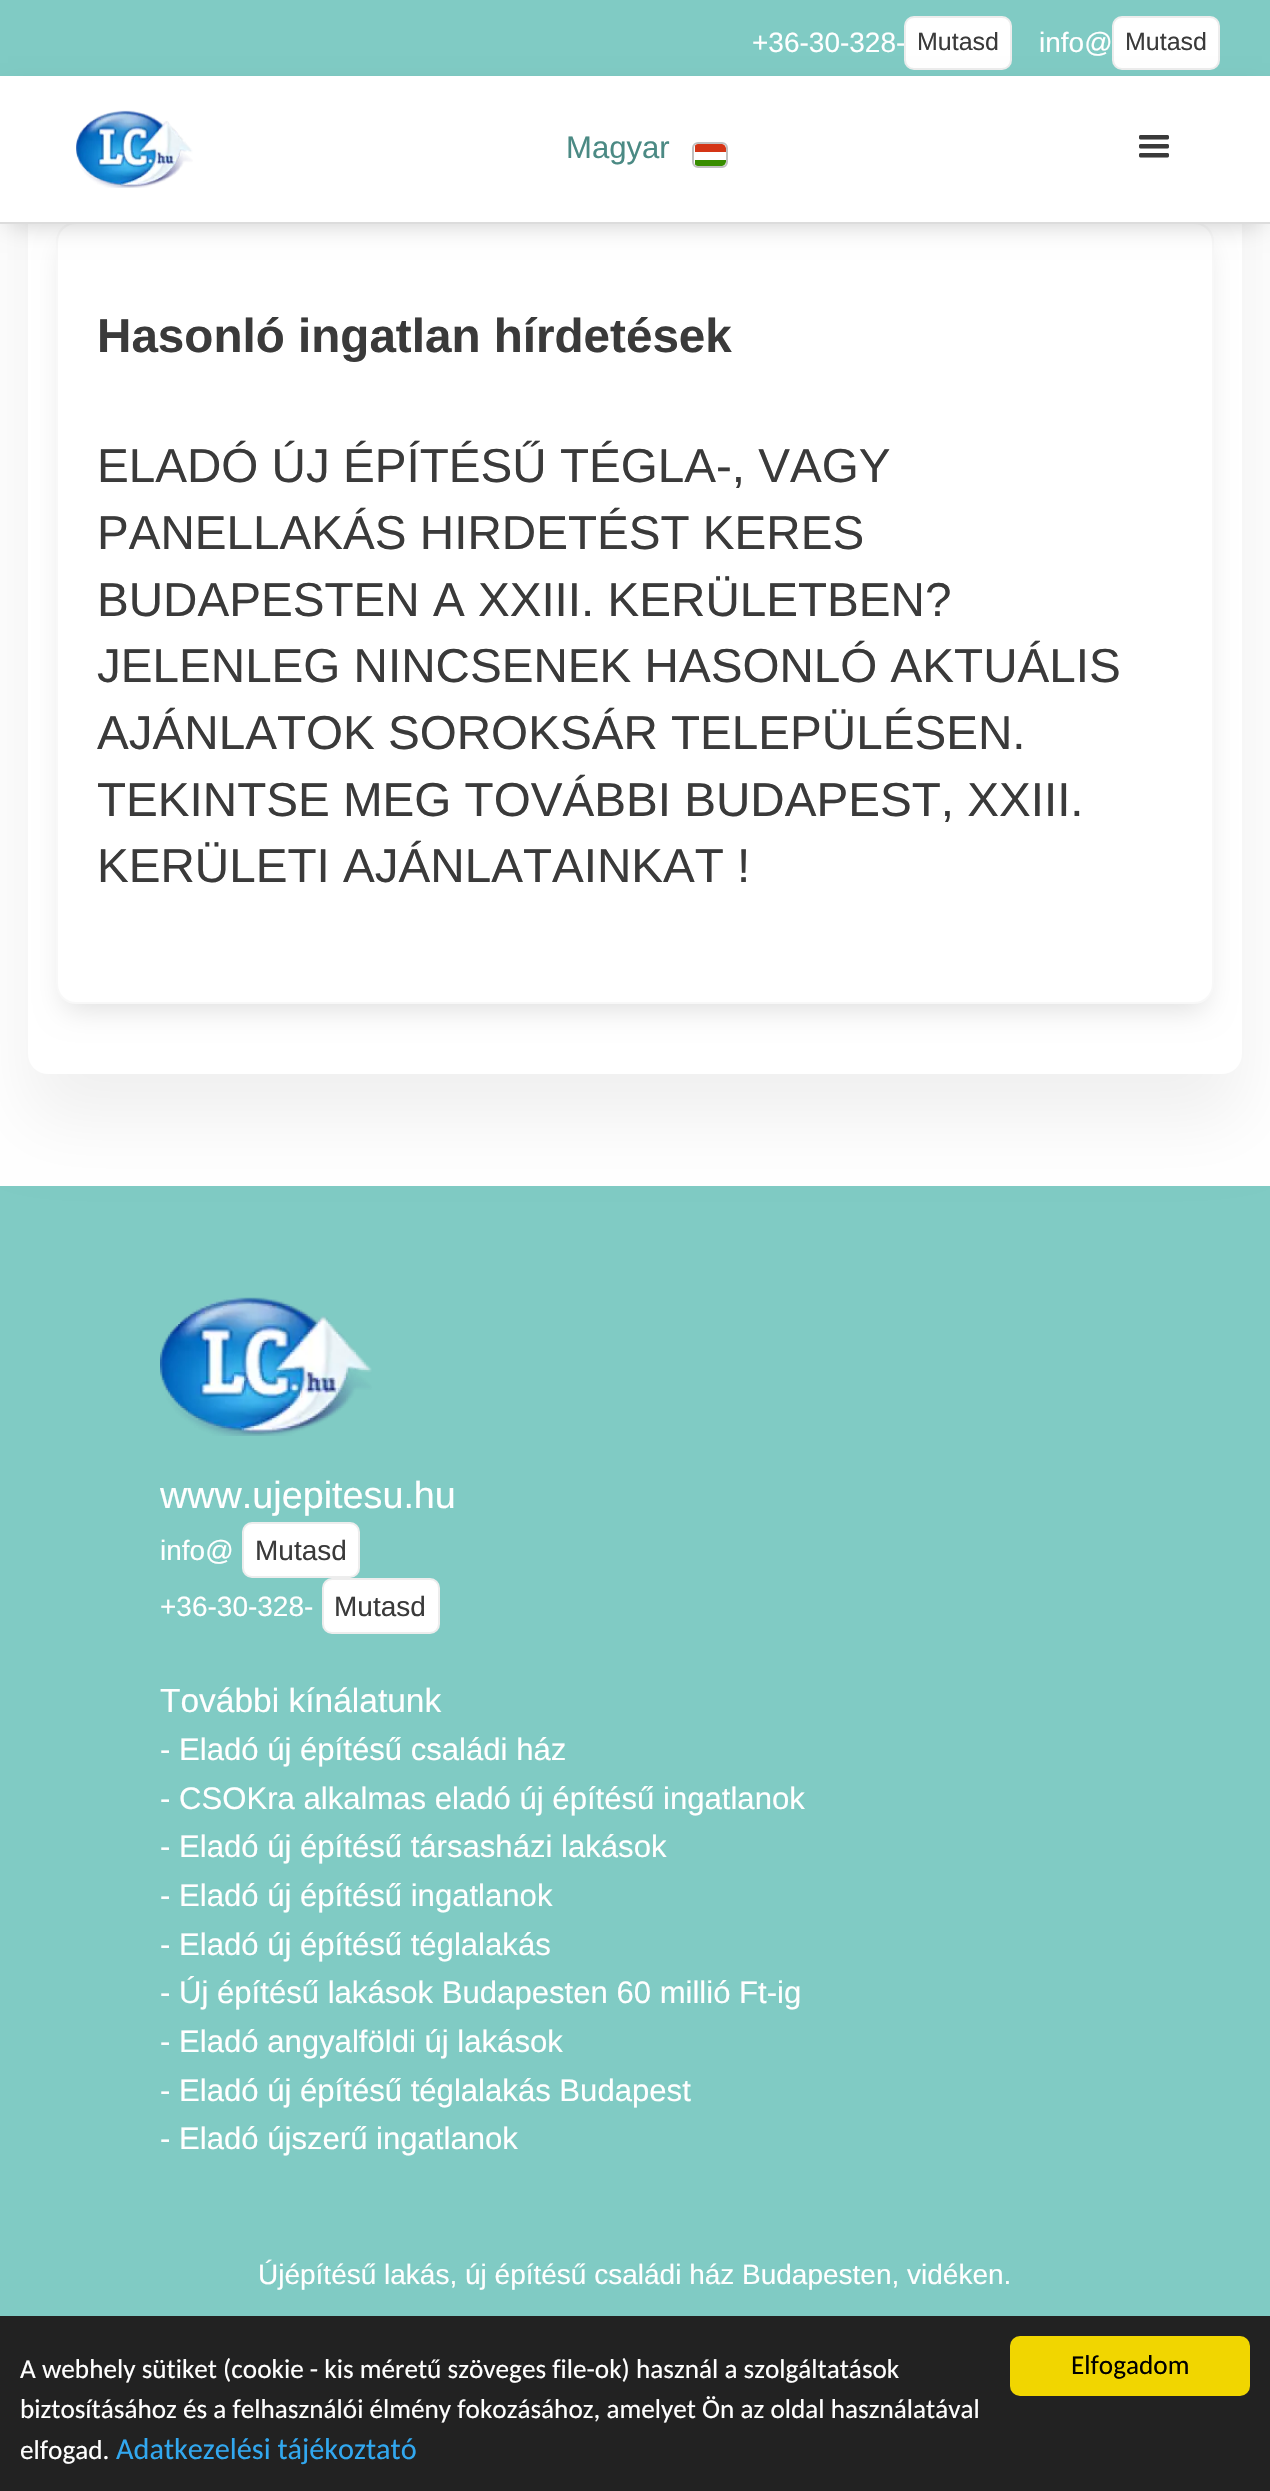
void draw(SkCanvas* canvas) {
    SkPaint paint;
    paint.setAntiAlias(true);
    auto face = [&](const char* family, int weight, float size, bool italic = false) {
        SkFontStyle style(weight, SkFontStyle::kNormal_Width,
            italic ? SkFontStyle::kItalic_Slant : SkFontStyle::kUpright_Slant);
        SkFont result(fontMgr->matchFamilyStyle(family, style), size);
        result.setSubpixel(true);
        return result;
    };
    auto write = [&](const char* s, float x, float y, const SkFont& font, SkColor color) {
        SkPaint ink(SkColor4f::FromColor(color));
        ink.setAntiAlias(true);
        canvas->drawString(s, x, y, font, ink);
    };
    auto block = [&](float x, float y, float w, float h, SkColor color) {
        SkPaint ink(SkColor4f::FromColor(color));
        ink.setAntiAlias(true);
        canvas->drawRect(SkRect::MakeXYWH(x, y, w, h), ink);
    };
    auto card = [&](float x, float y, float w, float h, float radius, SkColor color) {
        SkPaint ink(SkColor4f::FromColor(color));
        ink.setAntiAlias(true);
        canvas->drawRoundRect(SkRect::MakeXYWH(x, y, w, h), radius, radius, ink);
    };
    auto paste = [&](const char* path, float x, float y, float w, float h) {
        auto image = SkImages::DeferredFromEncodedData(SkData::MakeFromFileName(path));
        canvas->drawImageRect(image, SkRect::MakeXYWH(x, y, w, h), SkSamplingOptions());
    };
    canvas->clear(SK_ColorWHITE);
    block(0, 1186, 1270, 1130, SkColorSetRGB(128, 203, 196));
    paint.setColor(SkColorSetARGB(15, 0, 0, 0));
    paint.setMaskFilter(SkMaskFilter::MakeBlur(kNormal_SkBlurStyle, 34));
    canvas->drawRoundRect(SkRect::MakeXYWH(28, -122, 1214, 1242), 20, 20, paint);
    paint.setMaskFilter(nullptr);
    card(28, -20, 1214, 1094, 20, SK_ColorWHITE);
    block(0, 0, 1270, 76, SkColorSetRGB(128, 203, 196));
    auto kFont1 = face("Liberation Sans", 400, 28);
    write("+36-30-328-", 752, 52, kFont1, SK_ColorWHITE);
    card(904, 16, 108, 54, 10, SK_ColorWHITE);
    paint.setStyle(SkPaint::kStroke_Style);
    paint.setStrokeWidth(2);
    paint.setColor(SkColorSetARGB(26, 81, 81, 81));
    canvas->drawRoundRect(SkRect::MakeXYWH(905, 17, 106, 52), 9, 9, paint);
    auto kFont2 = face("Liberation Sans", 400, 25);
    write("Mutasd", 917, 50, kFont2, SkColorSetRGB(58, 58, 58));
    write("info@", 1039, 52, kFont1, SK_ColorWHITE);
    card(1112, 16, 108, 54, 10, SK_ColorWHITE);
    canvas->drawRoundRect(SkRect::MakeXYWH(1113, 17, 106, 52), 9, 9, paint);
    write("Mutasd", 1125, 50, kFont2, SkColorSetRGB(58, 58, 58));
    paint.setStyle(SkPaint::kFill_Style);
    paint.setColor(SkColorSetARGB(31, 0, 0, 0));
    paint.setMaskFilter(SkMaskFilter::MakeBlur(kNormal_SkBlurStyle, 14));
    canvas->drawRoundRect(SkRect::MakeXYWH(64, 244, 1142, 766), 12, 12, paint);
    paint.setMaskFilter(nullptr);
    paint.setColor(SK_ColorWHITE);
    canvas->drawRoundRect(SkRect::MakeXYWH(57, 223, 1156, 780), 19, 19, paint);
    paint.setStyle(SkPaint::kStroke_Style);
    paint.setColor(SkColorSetRGB(248, 248, 248));
    canvas->drawRoundRect(SkRect::MakeXYWH(57, 223, 1156, 780), 19, 19, paint);
    paint.setStyle(SkPaint::kFill_Style);
    paint.setColor(SkColorSetARGB(51, 0, 0, 0));
    paint.setMaskFilter(SkMaskFilter::MakeBlur(kNormal_SkBlurStyle, 12));
    canvas->drawRect(SkRect::MakeXYWH(8, 92, 1254, 132), paint);
    paint.setMaskFilter(nullptr);
    block(0, 76, 1270, 146, SK_ColorWHITE);
    block(0, 222, 1270, 2, SkColorSetRGB(220, 220, 220));
    paste("pic1.png", 76, 110, 117, 78);
    auto kFont3 = face("Liberation Sans", 400, 31.1f);
    write("Magyar", 566, 158, kFont3, SkColorSetRGB(75, 138, 132));
    paint.setStyle(SkPaint::kStroke_Style);
    paint.setColor(SkColorSetRGB(192, 192, 192));
    canvas->drawRoundRect(SkRect::MakeXYWH(693, 143, 34, 24), 5, 5, paint);
    canvas->save();
    canvas->clipPath(SkPathBuilder().moveTo(698, 144).lineTo(722, 144).cubicTo(724, 144, 726, 146, 726, 148).lineTo(726, 162).cubicTo(726, 164, 724, 166, 722, 166).lineTo(698, 166).cubicTo(696, 166, 694, 164, 694, 162).lineTo(694, 148).cubicTo(694, 146, 696, 144, 698, 144).close().detach(), true);
    paint.setStyle(SkPaint::kFill_Style);
    paint.setColor(SK_ColorWHITE);
    canvas->drawPath(SkPathBuilder().moveTo(695, 144).lineTo(722, 144).cubicTo(724, 144, 726, 146, 726, 148).lineTo(726, 162).cubicTo(726, 164, 724, 166, 722, 166).lineTo(695, 166).close().detach(), paint);
    paint.setColor(SkColorSetRGB(56, 141, 0));
    canvas->drawPath(SkPathBuilder().moveTo(695, 160).lineTo(726, 160).lineTo(726, 162).cubicTo(726, 164, 724, 166, 722, 166).lineTo(695, 166).close().detach(), paint);
    paint.setColor(SkColorSetRGB(212, 53, 22));
    canvas->drawPath(SkPathBuilder().moveTo(695, 144).lineTo(722, 144).cubicTo(724, 144, 726, 146, 726, 148).lineTo(726, 152).lineTo(695, 152).close().detach(), paint);
    canvas->restore();
    paste("pic2.png", 1139, 135, 30, 23);
    auto kFont4 = face("Liberation Sans", 700, 47.6f);
    write("Hasonló ingatlan hírdetések", 97, 352, kFont4, SkColorSetRGB(58, 58, 58));
    auto kFont5 = face("Liberation Sans", 400, 47.6f);
    write("ELADÓ ÚJ ÉPÍTÉSŰ TÉGLA-, VAGY", 97, 482, kFont5, SkColorSetRGB(58, 58, 58));
    write("PANELLAKÁS HIRDETÉST KERES", 97, 549, kFont5, SkColorSetRGB(58, 58, 58));
    write("BUDAPESTEN A XXIII. KERÜLETBEN?", 97, 616, kFont5, SkColorSetRGB(58, 58, 58));
    write("JELENLEG NINCSENEK HASONLÓ AKTUÁLIS", 97, 682, kFont5, SkColorSetRGB(58, 58, 58));
    write("AJÁNLATOK SOROKSÁR TELEPÜLÉSEN.", 97, 749, kFont5, SkColorSetRGB(58, 58, 58));
    write("TEKINTSE MEG TOVÁBBI BUDAPEST, XXIII.", 97, 816, kFont5, SkColorSetRGB(58, 58, 58));
    write("KERÜLETI AJÁNLATAINKAT !", 97, 882, kFont5, SkColorSetRGB(58, 58, 58));
    paste("pic3.png", 160, 1297, 212, 139);
    auto kFont6 = face("Liberation Sans", 400, 37.75f);
    write("www.ujepitesu.hu", 160, 1508, kFont6, SK_ColorWHITE);
    write("info@", 160, 1560, kFont1, SK_ColorWHITE);
    card(242, 1522, 118, 56, 10, SK_ColorWHITE);
    paint.setStyle(SkPaint::kStroke_Style);
    paint.setColor(SkColorSetARGB(26, 81, 81, 81));
    canvas->drawRoundRect(SkRect::MakeXYWH(243, 1523, 116, 54), 9, 9, paint);
    write("Mutasd", 255, 1560, kFont1, SkColorSetRGB(58, 58, 58));
    write("+36-30-328-", 160, 1616, kFont1, SK_ColorWHITE);
    card(322, 1578, 118, 56, 10, SK_ColorWHITE);
    canvas->drawRoundRect(SkRect::MakeXYWH(323, 1579, 116, 54), 9, 9, paint);
    write("Mutasd", 334, 1616, kFont1, SkColorSetRGB(58, 58, 58));
    auto kFont7 = face("Liberation Sans", 400, 33.5f);
    write("További kínálatunk", 160, 1712, kFont7, SK_ColorWHITE);
    write("- Eladó új építésű családi ház", 160, 1760, kFont3, SK_ColorWHITE);
    write("- CSOKra alkalmas eladó új építésű ingatlanok", 160, 1809, kFont3, SK_ColorWHITE);
    write("- Eladó új építésű társasházi lakások", 160, 1857, kFont3, SK_ColorWHITE);
    write("- Eladó új építésű ingatlanok", 160, 1906, kFont3, SK_ColorWHITE);
    write("- Eladó új építésű téglalakás", 160, 1955, kFont3, SK_ColorWHITE);
    write("- Új építésű lakások Budapesten 60 millió Ft-ig", 160, 2003, kFont3, SK_ColorWHITE);
    write("- Eladó angyalföldi új lakások", 160, 2052, kFont3, SK_ColorWHITE);
    write("- Eladó új építésű téglalakás Budapest", 160, 2101, kFont3, SK_ColorWHITE);
    write("- Eladó újszerű ingatlanok", 160, 2149, kFont3, SK_ColorWHITE);
    write("Újépítésű lakás, új építésű családi ház Budapesten, vidéken.", 258, 2284, kFont1, SK_ColorWHITE);
    block(0, 2316, 1270, 175, SkColorSetRGB(34, 34, 34));
    auto kFont8 = face("Carlito", 400, 27.2f);
    write("A webhely sütiket (cookie - kis méretű szöveges file-ok) használ a szolgáltatások", 20, 2378, kFont8, SK_ColorWHITE);
    write("biztosításához és a felhasználói élmény fokozásához, amelyet Ön az oldal használatával", 20, 2418, kFont8, SK_ColorWHITE);
    write("elfogad.", 20, 2459, kFont8, SK_ColorWHITE);
    auto kFont9 = face("Carlito", 400, 30.25f);
    write("Adatkezelési tájékoztató", 116, 2459, kFont9, SkColorSetRGB(49, 168, 240));
    card(1010, 2336, 240, 60, 10, SkColorSetRGB(241, 214, 0));
    write("Elfogadom", 1071, 2374, kFont8, SK_ColorBLACK);
}
